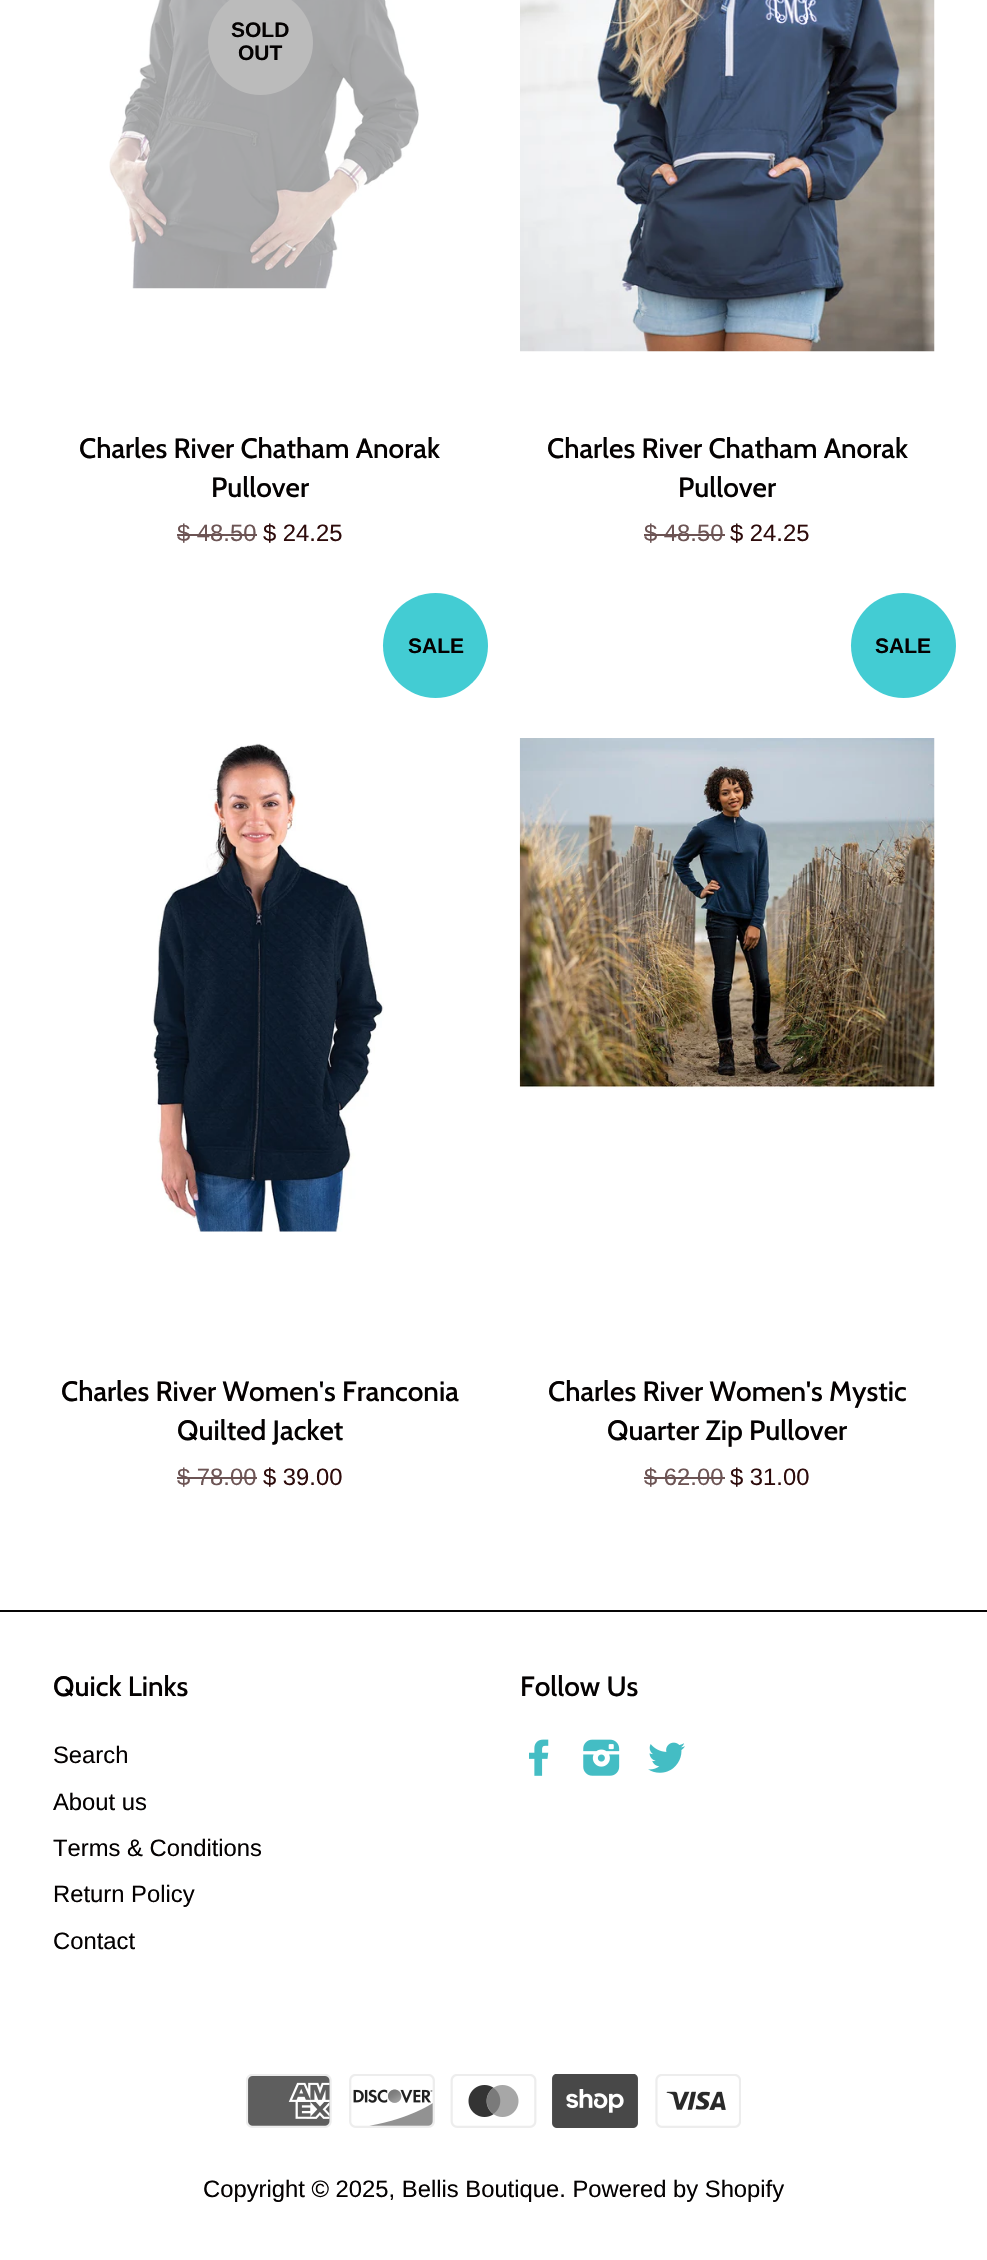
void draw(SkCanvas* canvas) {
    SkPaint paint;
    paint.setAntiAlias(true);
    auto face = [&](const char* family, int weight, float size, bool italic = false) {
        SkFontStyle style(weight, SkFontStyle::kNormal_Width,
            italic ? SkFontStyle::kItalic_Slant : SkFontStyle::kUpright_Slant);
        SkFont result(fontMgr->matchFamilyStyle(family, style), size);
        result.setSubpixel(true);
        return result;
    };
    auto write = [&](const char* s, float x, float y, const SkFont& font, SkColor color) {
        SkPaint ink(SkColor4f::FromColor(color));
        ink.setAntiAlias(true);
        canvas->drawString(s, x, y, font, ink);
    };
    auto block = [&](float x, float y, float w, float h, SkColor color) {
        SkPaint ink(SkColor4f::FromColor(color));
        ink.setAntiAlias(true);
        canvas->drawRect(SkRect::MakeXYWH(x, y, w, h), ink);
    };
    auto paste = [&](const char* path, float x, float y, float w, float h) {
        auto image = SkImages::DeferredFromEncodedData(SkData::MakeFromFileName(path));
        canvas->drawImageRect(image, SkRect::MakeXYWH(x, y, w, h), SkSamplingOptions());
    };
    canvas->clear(SK_ColorWHITE);
    paste("pic1.png", 109, 0, 310, 289);
    paint.setColor(SkColorSetRGB(187, 187, 187));
    canvas->drawCircle(260.5f, 42.5f, 52.5f, paint);
    auto kFont1 = face("Liberation Sans", 700, 21);
    write("SOLD", 231, 37, kFont1, SkColorSetRGB(4, 1, 1));
    write("OUT", 238, 60, kFont1, SkColorSetRGB(4, 1, 1));
    auto kFont2 = face("Cabin", 500, 28);
    write("Charles River Chatham Anorak", 79, 458, kFont2, SkColorSetRGB(4, 1, 1));
    write("Pullover", 211, 497, kFont2, SkColorSetRGB(4, 1, 1));
    auto kFont3 = face("Liberation Sans", 400, 23.8f);
    write("$ 48.50", 177, 541, kFont3, SkColorSetRGB(108, 84, 84));
    block(177, 534, 80, 2, SkColorSetRGB(108, 84, 84));
    write("$ 24.25", 263, 541, kFont3, SkColorSetRGB(45, 11, 11));
    paste("pic2.png", 520, 0, 415, 352);
    write("Charles River Chatham Anorak", 547, 458, kFont2, SkColorSetRGB(4, 1, 1));
    write("Pullover", 678, 497, kFont2, SkColorSetRGB(4, 1, 1));
    write("$ 48.50", 644, 541, kFont3, SkColorSetRGB(108, 84, 84));
    block(644, 534, 81, 2, SkColorSetRGB(108, 84, 84));
    write("$ 24.25", 730, 541, kFont3, SkColorSetRGB(45, 11, 11));
    paint.setColor(SkColorSetRGB(67, 204, 211));
    canvas->drawCircle(435.5f, 645.5f, 52.5f, paint);
    write("SALE", 408, 653, kFont1, SkColorSetRGB(4, 1, 1));
    paste("pic3.png", 152, 743, 232, 489);
    write("Charles River Women's Franconia", 61, 1401, kFont2, SkColorSetRGB(4, 1, 1));
    write("Quilted Jacket", 177, 1440, kFont2, SkColorSetRGB(4, 1, 1));
    write("$ 78.00", 177, 1485, kFont3, SkColorSetRGB(108, 84, 84));
    block(177, 1477, 80, 2, SkColorSetRGB(108, 84, 84));
    write("$ 39.00", 263, 1485, kFont3, SkColorSetRGB(45, 11, 11));
    canvas->drawCircle(903.5f, 645.5f, 52.5f, paint);
    write("SALE", 875, 653, kFont1, SkColorSetRGB(4, 1, 1));
    paste("pic4.png", 519, 738, 416, 352);
    write("Charles River Women's Mystic", 548, 1401, kFont2, SkColorSetRGB(4, 1, 1));
    write("Quarter Zip Pullover", 607, 1440, kFont2, SkColorSetRGB(4, 1, 1));
    write("$ 62.00", 644, 1485, kFont3, SkColorSetRGB(108, 84, 84));
    block(644, 1477, 81, 2, SkColorSetRGB(108, 84, 84));
    write("$ 31.00", 730, 1485, kFont3, SkColorSetRGB(45, 11, 11));
    block(0, 1610, 987, 2, SkColorSetRGB(6, 5, 5));
    write("Quick Links", 53, 1696, kFont2, SkColorSetRGB(4, 1, 1));
    write("Search", 53, 1763, kFont3, SkColorSetRGB(4, 1, 1));
    write("About us", 53, 1810, kFont3, SkColorSetRGB(4, 1, 1));
    write("Terms & Conditions", 53, 1856, kFont3, SkColorSetRGB(4, 1, 1));
    write("Return Policy", 53, 1902, kFont3, SkColorSetRGB(4, 1, 1));
    write("Contact", 53, 1949, kFont3, SkColorSetRGB(4, 1, 1));
    write("Follow Us", 520, 1696, kFont2, SkColorSetRGB(4, 1, 1));
    paste("pic5.png", 529, 1739, 20, 37);
    paste("pic6.png", 583, 1739, 37, 37);
    paste("pic7.png", 648, 1742, 37, 31);
    paste("pic8.png", 246, 2074, 86, 54);
    paste("pic9.png", 349, 2074, 86, 54);
    paste("pic10.png", 450, 2074, 87, 54);
    paste("pic11.png", 552, 2074, 86, 54);
    paste("pic12.png", 655, 2074, 86, 54);
    write("Copyright © 2025, Bellis Boutique. Powered by Shopify", 203, 2197, kFont3, SkColorSetRGB(4, 1, 1));
}
